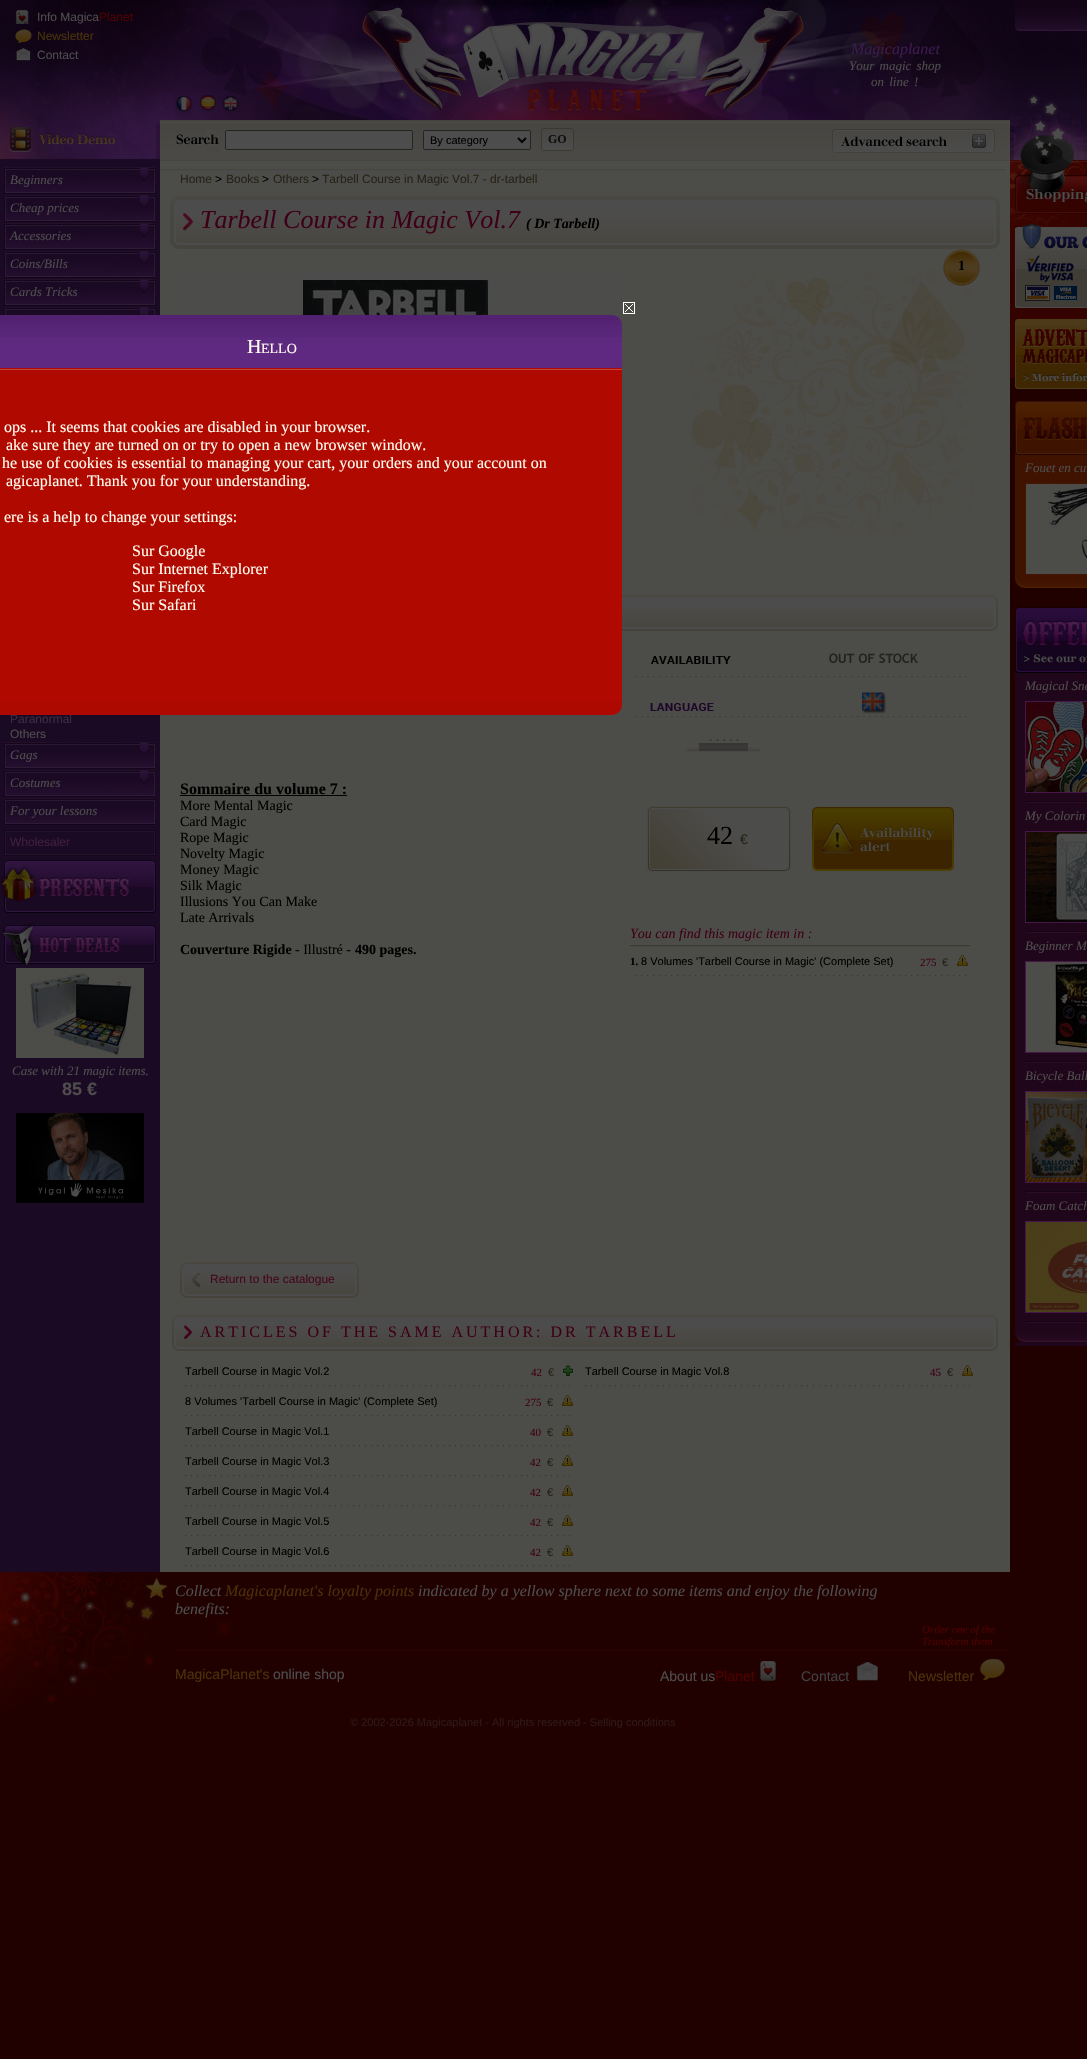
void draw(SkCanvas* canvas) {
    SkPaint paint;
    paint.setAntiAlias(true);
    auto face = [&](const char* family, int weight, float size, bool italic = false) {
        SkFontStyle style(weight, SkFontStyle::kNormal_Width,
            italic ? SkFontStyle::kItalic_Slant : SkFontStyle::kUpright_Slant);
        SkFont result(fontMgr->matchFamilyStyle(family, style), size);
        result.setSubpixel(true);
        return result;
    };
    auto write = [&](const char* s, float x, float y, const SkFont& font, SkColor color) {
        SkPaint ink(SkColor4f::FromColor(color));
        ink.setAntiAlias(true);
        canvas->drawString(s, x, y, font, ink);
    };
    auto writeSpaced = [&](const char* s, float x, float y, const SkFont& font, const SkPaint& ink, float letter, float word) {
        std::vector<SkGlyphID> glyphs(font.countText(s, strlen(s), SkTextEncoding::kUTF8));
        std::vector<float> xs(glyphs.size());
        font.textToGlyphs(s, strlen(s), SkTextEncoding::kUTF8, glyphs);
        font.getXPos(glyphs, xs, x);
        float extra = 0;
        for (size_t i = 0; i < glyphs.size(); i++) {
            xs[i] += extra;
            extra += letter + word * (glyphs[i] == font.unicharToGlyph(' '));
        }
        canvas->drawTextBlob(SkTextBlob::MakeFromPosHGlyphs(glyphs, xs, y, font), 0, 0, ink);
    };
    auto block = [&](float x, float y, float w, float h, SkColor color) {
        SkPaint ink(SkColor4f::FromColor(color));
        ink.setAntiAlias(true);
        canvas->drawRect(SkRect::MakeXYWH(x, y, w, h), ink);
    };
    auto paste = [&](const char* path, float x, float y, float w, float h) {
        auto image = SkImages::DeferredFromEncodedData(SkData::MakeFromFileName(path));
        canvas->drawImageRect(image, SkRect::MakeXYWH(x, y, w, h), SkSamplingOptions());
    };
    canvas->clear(SkColorSetRGB(32, 1, 0));
    paste("pic1.png", 0, 0, 1087, 120);
    paste("pic2.png", 15, 10, 14, 14);
    auto kFont1 = face("Liberation Sans", 400, 12);
    write("Info Magica", 37, 21, kFont1, SkColorSetRGB(77, 77, 77));
    write("Planet", 99, 21, kFont1, SkColorSetRGB(77, 0, 0));
    paste("pic3.png", 15, 29, 17, 14);
    write("Newsletter", 37, 40, kFont1, SkColorSetRGB(72, 49, 9));
    paste("pic4.png", 16, 48, 15, 13);
    write("Contact", 37, 59, kFont1, SkColorSetRGB(77, 77, 77));
    paste("pic5.png", 1015, 0, 72, 31);
    auto kFont2 = face("Liberation Serif", 400, 16, true);
    write("Magicaplanet", 851, 54, kFont2, SkColorSetRGB(59, 27, 77));
    auto kFont3 = face("Liberation Serif", 400, 13, true);
    paint.setColor(SkColorSetRGB(77, 77, 77));
    writeSpaced("Your magic shop", 849, 70, kFont3, paint, 0, 2);
    writeSpaced("on line !", 871, 86, kFont3, paint, 0, 2);
    paste("pic6.png", 175, 95, 18, 20);
    paste("pic7.png", 198, 95, 18, 20);
    paste("pic8.png", 221, 95, 18, 20);
    paste("pic9.png", 0, 160, 1010, 1412);
    paste("pic10.png", 0, 120, 160, 40);
    paste("pic11.png", 3, 167, 152, 27);
    write("Beginners", 10, 184, kFont3, SkColorSetRGB(77, 77, 77));
    paste("pic11.png", 3, 195, 152, 27);
    write("Cheap prices", 10, 212, kFont3, SkColorSetRGB(77, 77, 77));
    paste("pic11.png", 3, 223, 152, 27);
    write("Accessories", 10, 240, kFont3, SkColorSetRGB(77, 77, 77));
    paste("pic11.png", 3, 251, 152, 27);
    write("Coins/Bills", 10, 268, kFont3, SkColorSetRGB(77, 77, 77));
    paste("pic11.png", 3, 279, 152, 27);
    write("Cards Tricks", 10, 296, kFont3, SkColorSetRGB(77, 77, 77));
    paste("pic12.png", 3, 307, 152, 8);
    write("Paranormal", 10, 723, kFont1, SkColorSetRGB(58, 45, 66));
    write("Others", 10, 738, kFont1, SkColorSetRGB(77, 77, 77));
    paste("pic11.png", 3, 742, 152, 27);
    write("Gags", 10, 759, kFont3, SkColorSetRGB(77, 77, 77));
    paste("pic11.png", 3, 770, 152, 27);
    write("Costumes", 10, 787, kFont3, SkColorSetRGB(77, 77, 77));
    paste("pic13.png", 3, 798, 152, 27);
    write("For your lessons", 10, 815, kFont3, SkColorSetRGB(77, 77, 77));
    paste("pic14.png", 4, 830, 152, 26);
    write("Wholesaler", 10, 846, kFont1, SkColorSetRGB(64, 29, 59));
    paste("pic15.png", 0, 860, 156, 53);
    paste("pic16.png", 2, 923, 154, 42);
    paste("pic17.png", 16, 968, 128, 90);
    write("Case with 21 magic items.", 12, 1075, kFont3, SkColorSetRGB(77, 77, 77));
    auto kFont4 = face("Liberation Sans", 700, 18);
    write("85 €", 62, 1095, kFont4, SkColorSetRGB(77, 77, 77));
    paste("pic18.png", 16, 1113, 128, 90);
    paste("pic19.png", 160, 120, 850, 42);
    paste("pic20.png", 175, 130, 45, 22);
    canvas->drawRoundRect(SkRect::MakeXYWH(225.5f, 130.5f, 187, 19), 1.5f, 1.5f, paint);
    paint.setStyle(SkPaint::kStroke_Style);
    paint.setStrokeWidth(1);
    paint.setColor(SkColorSetRGB(35, 35, 35));
    canvas->drawRoundRect(SkRect::MakeXYWH(225.5f, 130.5f, 187, 19), 1.5f, 1.5f, paint);
    paint.setStyle(SkPaint::kFill_Style);
    paint.setColor(SkColorSetRGB(77, 77, 77));
    canvas->drawRoundRect(SkRect::MakeXYWH(423.5f, 130.5f, 107, 19), 1.5f, 1.5f, paint);
    paint.setStyle(SkPaint::kStroke_Style);
    paint.setColor(SkColorSetRGB(35, 35, 35));
    canvas->drawRoundRect(SkRect::MakeXYWH(423.5f, 130.5f, 107, 19), 1.5f, 1.5f, paint);
    paint.setStrokeWidth(2);
    paint.setColor(SK_ColorBLACK);
    canvas->drawPath(SkPathBuilder().moveTo(518, 138).lineTo(522, 142).lineTo(526, 138).detach(), paint);
    auto kFont5 = face("Liberation Sans", 400, 11);
    write("By category", 430, 144, kFont5, SK_ColorBLACK);
    canvas->save();
    canvas->clipPath(SkPathBuilder().moveTo(544, 128).lineTo(571, 128).cubicTo(572.5f, 128, 574, 129.5f, 574, 131).lineTo(574, 148).cubicTo(574, 149.5f, 572.5f, 151, 571, 151).lineTo(544, 151).cubicTo(542.5f, 151, 541, 149.5f, 541, 148).lineTo(541, 131).cubicTo(541, 129.5f, 542.5f, 128, 544, 128).close().detach(), true);
    paint.setStyle(SkPaint::kFill_Style);
    {
        const SkColor colors[] = {SkColorSetRGB(72, 71, 68), SkColorSetRGB(77, 77, 77)};
        const float stops[] = {0, 1};
        const SkPoint ends[] = {{558, 129}, {558, 150}};
        paint.setShader(SkGradientShader::MakeLinear(ends, colors, stops, 2, SkTileMode::kClamp));
        paint.setAlpha(255);
    }
    canvas->drawRect(SkRect::MakeXYWH(541, 129, 33, 21), paint);
    canvas->restore();
    paint.setStyle(SkPaint::kStroke_Style);
    paint.setStrokeWidth(1);
    paint.setShader(nullptr);
    paint.setColor(SkColorSetRGB(59, 57, 50));
    canvas->drawRoundRect(SkRect::MakeXYWH(541.5f, 128.5f, 32, 22), 2.5f, 2.5f, paint);
    auto kFont6 = face("Liberation Serif", 700, 12);
    write("GO", 548, 143, kFont6, SkColorSetRGB(15, 15, 15));
    paste("pic21.png", 832, 129, 163, 24);
    paste("pic22.png", 160, 169, 846, 3);
    write("Home", 180, 183, kFont1, SkColorSetRGB(38, 34, 22));
    write(">", 215, 183, kFont1, SK_ColorBLACK);
    write("Books", 226, 183, kFont1, SkColorSetRGB(38, 34, 22));
    write(">", 262, 183, kFont1, SK_ColorBLACK);
    write("Others", 273, 183, kFont1, SkColorSetRGB(38, 34, 22));
    write(">", 312, 183, kFont1, SK_ColorBLACK);
    write("Tarbell Course in Magic Vol.7 - dr-tarbell", 322, 183, kFont1, SkColorSetRGB(38, 34, 22));
    paste("pic23.png", 170, 195, 830, 54);
    auto kFont7 = face("Liberation Serif", 400, 26, true);
    write("Tarbell Course in Magic Vol.7", 200, 228, kFont7, SkColorSetRGB(62, 0, 24));
    auto kFont8 = face("Liberation Serif", 700, 14, true);
    write("( Dr Tarbell)", 526, 228, kFont8, SK_ColorBLACK);
    paste("pic26.png", 691, 270, 283, 265);
    paste("pic24.png", 943, 249, 37, 37);
    auto kFont9 = face("Liberation Serif", 700, 14);
    write("1", 958, 270, kFont9, SK_ColorBLACK);
    paste("pic25.png", 170, 270, 450, 50);
    paste("pic27.png", 622, 595, 376, 36);
    auto kFont10 = face("Liberation Serif", 700, 16);
    write("Sommaire du volume 7 :", 180, 794, kFont10, SK_ColorBLACK);
    block(180, 795, 167, 1, SK_ColorBLACK);
    auto kFont11 = face("Liberation Serif", 400, 14);
    write("More Mental Magic", 180, 810, kFont11, SK_ColorBLACK);
    write("Card Magic", 180, 826, kFont11, SK_ColorBLACK);
    write("Rope Magic", 180, 842, kFont11, SK_ColorBLACK);
    write("Novelty Magic", 180, 858, kFont11, SK_ColorBLACK);
    write("Money Magic", 180, 874, kFont11, SK_ColorBLACK);
    write("Silk Magic", 180, 890, kFont11, SK_ColorBLACK);
    write("Illusions You Can Make", 180, 906, kFont11, SK_ColorBLACK);
    write("Late Arrivals", 180, 922, kFont11, SK_ColorBLACK);
    write("Couverture Rigide", 180, 954, kFont9, SK_ColorBLACK);
    write("- Illustré -", 295, 954, kFont11, SK_ColorBLACK);
    write("490 pages.", 355, 954, kFont9, SK_ColorBLACK);
    paste("pic28.png", 180, 1262, 179, 36);
    write("Return to the catalogue", 210, 1283, kFont1, SkColorSetRGB(67, 7, 29));
    paste("pic29.png", 651, 656, 80, 8);
    paste("pic30.png", 829, 653, 89, 10);
    paste("pic31.png", 630, 676, 337, 2);
    paste("pic32.png", 650, 703, 64, 8);
    paste("pic33.png", 862, 692, 24, 22);
    paste("pic31.png", 630, 716, 337, 2);
    paste("pic34.png", 685, 739, 77, 13);
    paste("pic35.png", 647, 806, 144, 66);
    auto kFont12 = face("Liberation Serif", 400, 26);
    write("42", 707, 844, kFont12, SK_ColorBLACK);
    auto kFont13 = face("Liberation Sans", 400, 14);
    write("€", 740, 844, kFont13, SkColorSetRGB(38, 34, 22));
    paste("pic36.png", 812, 807, 142, 64);
    paste("pic37.png", 630, 945, 340, 2);
    auto kFont14 = face("Liberation Serif", 400, 14, true);
    write("You can find this magic item in :", 630, 938, kFont14, SkColorSetRGB(62, 0, 24));
    paste("pic38.png", 635, 975, 331, 2);
    auto kFont15 = face("Liberation Serif", 700, 11);
    write("1.", 630, 965, kFont15, SK_ColorBLACK);
    write("8 Volumes 'Tarbell Course in Magic' (Complete Set)", 641, 965, kFont5, SK_ColorBLACK);
    auto kFont16 = face("Liberation Serif", 400, 11);
    write("275", 920, 966, kFont16, SkColorSetRGB(62, 0, 24));
    write("€", 942, 966, kFont5, SkColorSetRGB(38, 34, 22));
    paste("pic39.png", 957, 955, 11, 11);
    paste("pic40.png", 172, 1315, 826, 36);
    auto kFont17 = face("Liberation Serif", 400, 16);
    paint.setStyle(SkPaint::kFill_Style);
    paint.setColor(SkColorSetRGB(62, 0, 24));
    writeSpaced("ARTICLES OF THE SAME AUTHOR: DR TARBELL", 200, 1337, kFont17, paint, 3, 0);
    paste("pic41.png", 185, 1385, 385, 2);
    write("Tarbell Course in Magic Vol.2", 185, 1375, kFont5, SK_ColorBLACK);
    write("42", 531, 1376, kFont16, SkColorSetRGB(62, 0, 24));
    write("€", 548, 1376, kFont5, SkColorSetRGB(38, 34, 22));
    paste("pic42.png", 563, 1365, 10, 11);
    paste("pic41.png", 185, 1415, 385, 2);
    write("8 Volumes 'Tarbell Course in Magic' (Complete Set)", 185, 1405, kFont5, SK_ColorBLACK);
    write("275", 525, 1406, kFont16, SkColorSetRGB(62, 0, 24));
    write("€", 547, 1406, kFont5, SkColorSetRGB(38, 34, 22));
    paste("pic39.png", 562, 1395, 11, 11);
    paste("pic41.png", 185, 1445, 385, 2);
    write("Tarbell Course in Magic Vol.1", 185, 1435, kFont5, SK_ColorBLACK);
    write("40", 530, 1436, kFont16, SkColorSetRGB(62, 0, 24));
    write("€", 547, 1436, kFont5, SkColorSetRGB(38, 34, 22));
    paste("pic39.png", 562, 1425, 11, 11);
    paste("pic41.png", 185, 1475, 385, 2);
    write("Tarbell Course in Magic Vol.3", 185, 1465, kFont5, SK_ColorBLACK);
    write("42", 530, 1466, kFont16, SkColorSetRGB(62, 0, 24));
    write("€", 547, 1466, kFont5, SkColorSetRGB(38, 34, 22));
    paste("pic39.png", 562, 1455, 11, 11);
    paste("pic41.png", 185, 1505, 385, 2);
    write("Tarbell Course in Magic Vol.4", 185, 1495, kFont5, SK_ColorBLACK);
    write("42", 530, 1496, kFont16, SkColorSetRGB(62, 0, 24));
    write("€", 547, 1496, kFont5, SkColorSetRGB(38, 34, 22));
    paste("pic39.png", 562, 1485, 11, 11);
    paste("pic41.png", 185, 1535, 385, 2);
    write("Tarbell Course in Magic Vol.5", 185, 1525, kFont5, SK_ColorBLACK);
    write("42", 530, 1526, kFont16, SkColorSetRGB(62, 0, 24));
    write("€", 547, 1526, kFont5, SkColorSetRGB(38, 34, 22));
    paste("pic39.png", 562, 1515, 11, 11);
    paste("pic41.png", 185, 1565, 385, 2);
    write("Tarbell Course in Magic Vol.6", 185, 1555, kFont5, SK_ColorBLACK);
    write("42", 530, 1556, kFont16, SkColorSetRGB(62, 0, 24));
    write("€", 547, 1556, kFont5, SkColorSetRGB(38, 34, 22));
    paste("pic39.png", 562, 1545, 11, 11);
    paste("pic41.png", 585, 1385, 385, 2);
    write("Tarbell Course in Magic Vol.8", 585, 1375, kFont5, SK_ColorBLACK);
    write("45", 930, 1376, kFont16, SkColorSetRGB(62, 0, 24));
    write("€", 947, 1376, kFont5, SkColorSetRGB(38, 34, 22));
    paste("pic39.png", 962, 1365, 11, 11);
    paste("pic43.png", 1010, 120, 77, 258);
    paste("pic44.png", 1015, 224, 72, 84);
    paste("pic45.png", 1015, 319, 72, 70);
    paste("pic46.png", 1015, 401, 72, 54);
    block(1015, 455, 72, 120, SkColorSetRGB(63, 19, 0));
    write("Fouet en cu", 1025, 472, kFont3, SkColorSetRGB(77, 77, 77));
    paint.setStyle(SkPaint::kStroke_Style);
    paint.setColor(SkColorSetRGB(68, 21, 0));
    canvas->drawRect(SkRect::MakeXYWH(1025.5f, 483.5f, 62, 91), paint);
    paste("pic47.png", 1026, 484, 61, 90);
    paste("pic48.png", 1015, 575, 72, 13);
    paste("pic49.png", 1015, 607, 72, 66);
    block(1015, 673, 72, 673, SkColorSetRGB(32, 6, 26));
    paste("pic50.png", 1026, 801, 61, 2);
    write("Magical Sne", 1025, 690, kFont3, SkColorSetRGB(77, 77, 77));
    paint.setColor(SkColorSetRGB(70, 22, 71));
    canvas->drawRect(SkRect::MakeXYWH(1025.5f, 701.5f, 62, 91), paint);
    paste("pic51.png", 1026, 702, 61, 90);
    paste("pic50.png", 1026, 931, 61, 2);
    write("My Colorin", 1025, 820, kFont3, SkColorSetRGB(77, 77, 77));
    canvas->drawRect(SkRect::MakeXYWH(1025.5f, 831.5f, 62, 91), paint);
    paste("pic52.png", 1026, 832, 61, 90);
    paste("pic50.png", 1026, 1061, 61, 2);
    write("Beginner M", 1025, 950, kFont3, SkColorSetRGB(77, 77, 77));
    canvas->drawRect(SkRect::MakeXYWH(1025.5f, 961.5f, 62, 91), paint);
    paste("pic53.png", 1026, 962, 61, 90);
    paste("pic50.png", 1026, 1191, 61, 2);
    write("Bicycle Ball", 1025, 1080, kFont3, SkColorSetRGB(77, 77, 77));
    canvas->drawRect(SkRect::MakeXYWH(1025.5f, 1091.5f, 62, 91), paint);
    paste("pic54.png", 1026, 1092, 61, 90);
    paste("pic50.png", 1026, 1321, 61, 2);
    write("Foam Catch", 1025, 1210, kFont3, SkColorSetRGB(77, 77, 77));
    canvas->drawRect(SkRect::MakeXYWH(1025.5f, 1221.5f, 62, 91), paint);
    paste("pic55.png", 1026, 1222, 61, 90);
    paste("pic56.png", 1015, 1329, 72, 13);
    paste("pic57.png", 0, 1572, 256, 141);
    write("Collect", 175, 1596, kFont2, SkColorSetRGB(77, 77, 77));
    write("Magicaplanet's loyalty points", 225, 1596, kFont2, SkColorSetRGB(72, 49, 9));
    write("indicated by a yellow sphere next to some items and enjoy the following", 418, 1596, kFont2, SkColorSetRGB(77, 77, 77));
    write("benefits:", 175, 1614, kFont2, SkColorSetRGB(77, 77, 77));
    block(175, 1650, 835, 1, SkColorSetRGB(42, 2, 0));
    auto kFont18 = face("Liberation Serif", 400, 11, true);
    write("Order one of the", 922, 1633, kFont18, SkColorSetRGB(77, 0, 0));
    write("Transform them", 922, 1645, kFont18, SkColorSetRGB(77, 0, 0));
    write("MagicaPlanet's", 175, 1679, kFont13, SkColorSetRGB(72, 49, 9));
    write("online shop", 273, 1679, kFont13, SkColorSetRGB(77, 77, 77));
    write("About us", 660, 1681, kFont13, SkColorSetRGB(77, 77, 77));
    write("Planet", 715, 1681, kFont13, SkColorSetRGB(77, 0, 0));
    paste("pic58.png", 759, 1661, 17, 20);
    write("Contact", 801, 1681, kFont13, SkColorSetRGB(65, 65, 65));
    paste("pic59.png", 856, 1662, 22, 19);
    write("Newsletter", 908, 1681, kFont13, SkColorSetRGB(72, 49, 9));
    paste("pic60.png", 980, 1659, 25, 22);
    write("© 2002-2026 Magicaplanet - All rights reserved - Selling conditions", 350, 1726, kFont5, SkColorSetRGB(45, 24, 24));
    paste("pic61.png", 623, 302, 12, 12);
    paste("pic62.png", 0, 315, 622, 400);
    auto kFont19 = face("Liberation Serif", 400, 20);
    write("H", 247, 353, kFont19, SkColorSetRGB(255, 252, 240));
    write("ELLO", 261, 353, kFont11, SkColorSetRGB(255, 252, 240));
    write("ops ... It seems that cookies are disabled in your browser.", 4, 432, kFont17, SkColorSetRGB(255, 252, 240));
    write("ake sure they are turned on or try to open a new browser window.", 6, 450, kFont17, SkColorSetRGB(255, 252, 240));
    write("he use of cookies is essential to managing your cart, your orders and your account on", 2, 468, kFont17, SkColorSetRGB(255, 252, 240));
    write("agicaplanet. Thank you for your understanding.", 6, 486, kFont17, SkColorSetRGB(255, 252, 240));
    write("ere is a help to change your settings:", 4, 522, kFont17, SkColorSetRGB(255, 252, 240));
    write("Sur Google", 132, 556, kFont17, SkColorSetRGB(255, 252, 240));
    write("Sur Internet Explorer", 132, 574, kFont17, SkColorSetRGB(255, 252, 240));
    write("Sur Firefox", 132, 592, kFont17, SkColorSetRGB(255, 252, 240));
    write("Sur Safari", 132, 610, kFont17, SkColorSetRGB(255, 252, 240));
}
